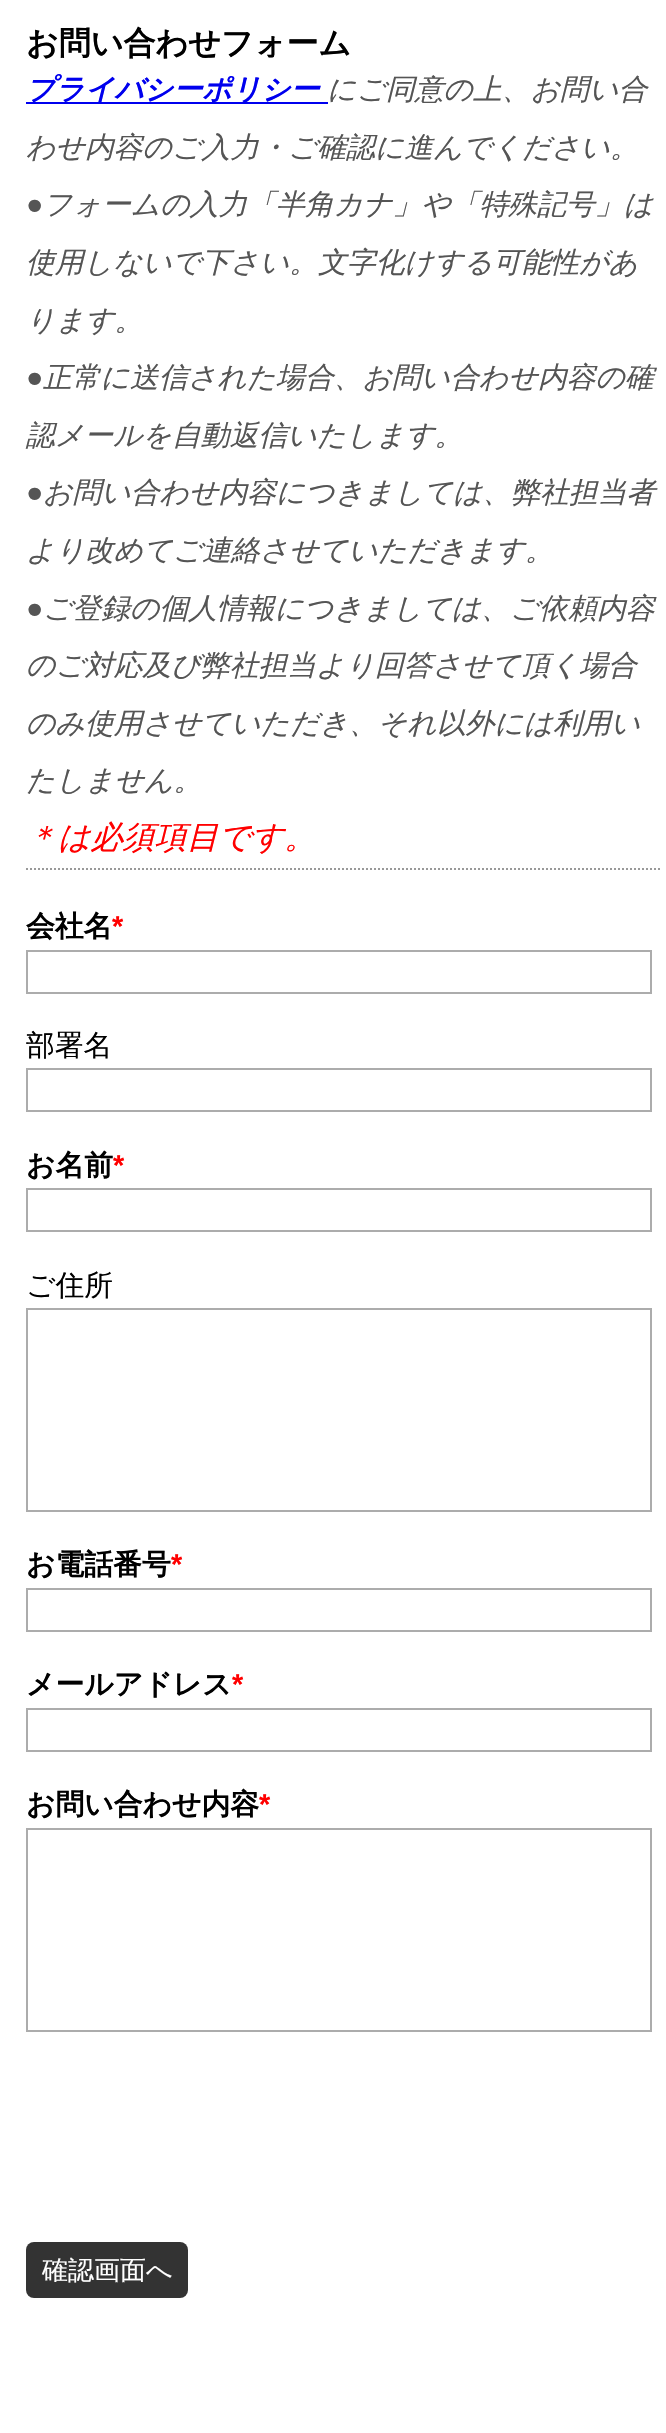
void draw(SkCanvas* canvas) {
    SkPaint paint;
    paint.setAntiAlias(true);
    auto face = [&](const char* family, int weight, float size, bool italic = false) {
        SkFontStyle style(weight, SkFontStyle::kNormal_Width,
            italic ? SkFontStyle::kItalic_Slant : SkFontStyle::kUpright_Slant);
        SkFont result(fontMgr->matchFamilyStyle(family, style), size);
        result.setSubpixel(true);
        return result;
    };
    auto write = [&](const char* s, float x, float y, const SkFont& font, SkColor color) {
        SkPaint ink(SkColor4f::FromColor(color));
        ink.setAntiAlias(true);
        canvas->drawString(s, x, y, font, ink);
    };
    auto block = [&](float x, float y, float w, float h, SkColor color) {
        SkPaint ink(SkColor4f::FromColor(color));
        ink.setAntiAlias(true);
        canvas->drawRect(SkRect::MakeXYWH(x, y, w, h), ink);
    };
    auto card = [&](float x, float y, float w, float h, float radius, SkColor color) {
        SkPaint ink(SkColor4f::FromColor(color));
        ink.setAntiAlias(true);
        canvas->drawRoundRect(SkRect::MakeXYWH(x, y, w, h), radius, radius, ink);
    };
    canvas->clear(SK_ColorWHITE);
    auto kFont1 = face("WenQuanYi Zen Hei", 700, 32);
    write("お問い合わせフォーム", 26, 54, kFont1, SK_ColorBLACK);
    paint.setStyle(SkPaint::kStroke_Style);
    paint.setStrokeWidth(2);
    paint.setColor(SkColorSetRGB(153, 153, 153));
    paint.setPathEffect(SkDashPathEffect::Make({{2, 2}}, 0));
    canvas->drawPath(SkPathBuilder().moveTo(26, 869).lineTo(660, 869).detach(), paint);
    paint.setPathEffect(nullptr);
    block(26, 102, 302, 2, SkColorSetRGB(0, 0, 238));
    auto kFont2 = face("WenQuanYi Zen Hei", 700, 28.8f, true);
    write("プライバシーポリシー", 26, 99, kFont2, SkColorSetRGB(0, 0, 238));
    auto kFont3 = face("WenQuanYi Zen Hei", 500, 28.8f, true);
    write("にご同意の上、お問い合", 327, 99, kFont3, SkColorSetRGB(85, 85, 85));
    write("わせ内容のご入力・ご確認に進んでください。", 26, 157, kFont3, SkColorSetRGB(85, 85, 85));
    auto kFont4 = face("Liberation Sans", 400, 28.8f, true);
    write("●", 26, 214, kFont4, SkColorSetRGB(85, 85, 85));
    write("フォームの入力「半角カナ」や「特殊記号」は", 43, 214, kFont3, SkColorSetRGB(85, 85, 85));
    write("使用しないで下さい。文字化けする可能性があ", 26, 272, kFont3, SkColorSetRGB(85, 85, 85));
    write("ります。", 26, 330, kFont3, SkColorSetRGB(85, 85, 85));
    write("●", 26, 387, kFont4, SkColorSetRGB(85, 85, 85));
    write("正常に送信された場合、お問い合わせ内容の確", 43, 387, kFont3, SkColorSetRGB(85, 85, 85));
    write("認メールを自動返信いたします。", 26, 445, kFont3, SkColorSetRGB(85, 85, 85));
    write("●", 26, 502, kFont4, SkColorSetRGB(85, 85, 85));
    write("お問い合わせ内容につきましては、弊社担当者", 43, 502, kFont3, SkColorSetRGB(85, 85, 85));
    write("より改めてご連絡させていただきます。", 26, 560, kFont3, SkColorSetRGB(85, 85, 85));
    write("●", 26, 618, kFont4, SkColorSetRGB(85, 85, 85));
    write("ご登録の個人情報につきましては、ご依頼内容", 43, 618, kFont3, SkColorSetRGB(85, 85, 85));
    write("のご対応及び弊社担当より回答させて頂く場合", 26, 675, kFont3, SkColorSetRGB(85, 85, 85));
    write("のみ使用させていただき、それ以外には利用い", 26, 733, kFont3, SkColorSetRGB(85, 85, 85));
    write("たしません。", 26, 790, kFont3, SkColorSetRGB(85, 85, 85));
    auto kFont5 = face("WenQuanYi Zen Hei", 500, 32, true);
    write("＊は必須項目です。", 26, 848, kFont5, SkColorSetRGB(255, 0, 0));
    auto kFont6 = face("WenQuanYi Zen Hei", 700, 28.8f);
    write("会社名", 26, 936, kFont6, SK_ColorBLACK);
    auto kFont7 = face("Liberation Sans", 700, 28.8f);
    write("*", 112, 936, kFont7, SkColorSetRGB(255, 0, 0));
    paint.setColor(SkColorSetRGB(172, 172, 172));
    canvas->drawRect(SkRect::MakeXYWH(27, 951, 624, 42), paint);
    auto kFont8 = face("WenQuanYi Zen Hei", 500, 28.8f);
    write("部署名", 26, 1055, kFont8, SK_ColorBLACK);
    canvas->drawRect(SkRect::MakeXYWH(27, 1069, 624, 42), paint);
    write("お名前", 26, 1175, kFont6, SK_ColorBLACK);
    write("*", 113, 1175, kFont7, SkColorSetRGB(255, 0, 0));
    canvas->drawRect(SkRect::MakeXYWH(27, 1189, 624, 42), paint);
    write("ご住所", 26, 1295, kFont8, SK_ColorBLACK);
    canvas->drawRect(SkRect::MakeXYWH(27, 1309, 624, 202), paint);
    write("お電話番号", 26, 1574, kFont6, SK_ColorBLACK);
    write("*", 171, 1574, kFont7, SkColorSetRGB(255, 0, 0));
    canvas->drawRect(SkRect::MakeXYWH(27, 1589, 624, 42), paint);
    write("メールアドレス", 26, 1694, kFont6, SK_ColorBLACK);
    write("*", 232, 1694, kFont7, SkColorSetRGB(255, 0, 0));
    canvas->drawRect(SkRect::MakeXYWH(27, 1709, 624, 42), paint);
    write("お問い合わせ内容", 26, 1814, kFont6, SK_ColorBLACK);
    write("*", 259, 1814, kFont7, SkColorSetRGB(255, 0, 0));
    canvas->drawRect(SkRect::MakeXYWH(27, 1829, 624, 202), paint);
    card(26, 2242, 162, 56, 8, SkColorSetRGB(51, 51, 51));
    auto kFont9 = face("WenQuanYi Zen Hei", 500, 26);
    write("確認画面へ", 42, 2279, kFont9, SK_ColorWHITE);
}
